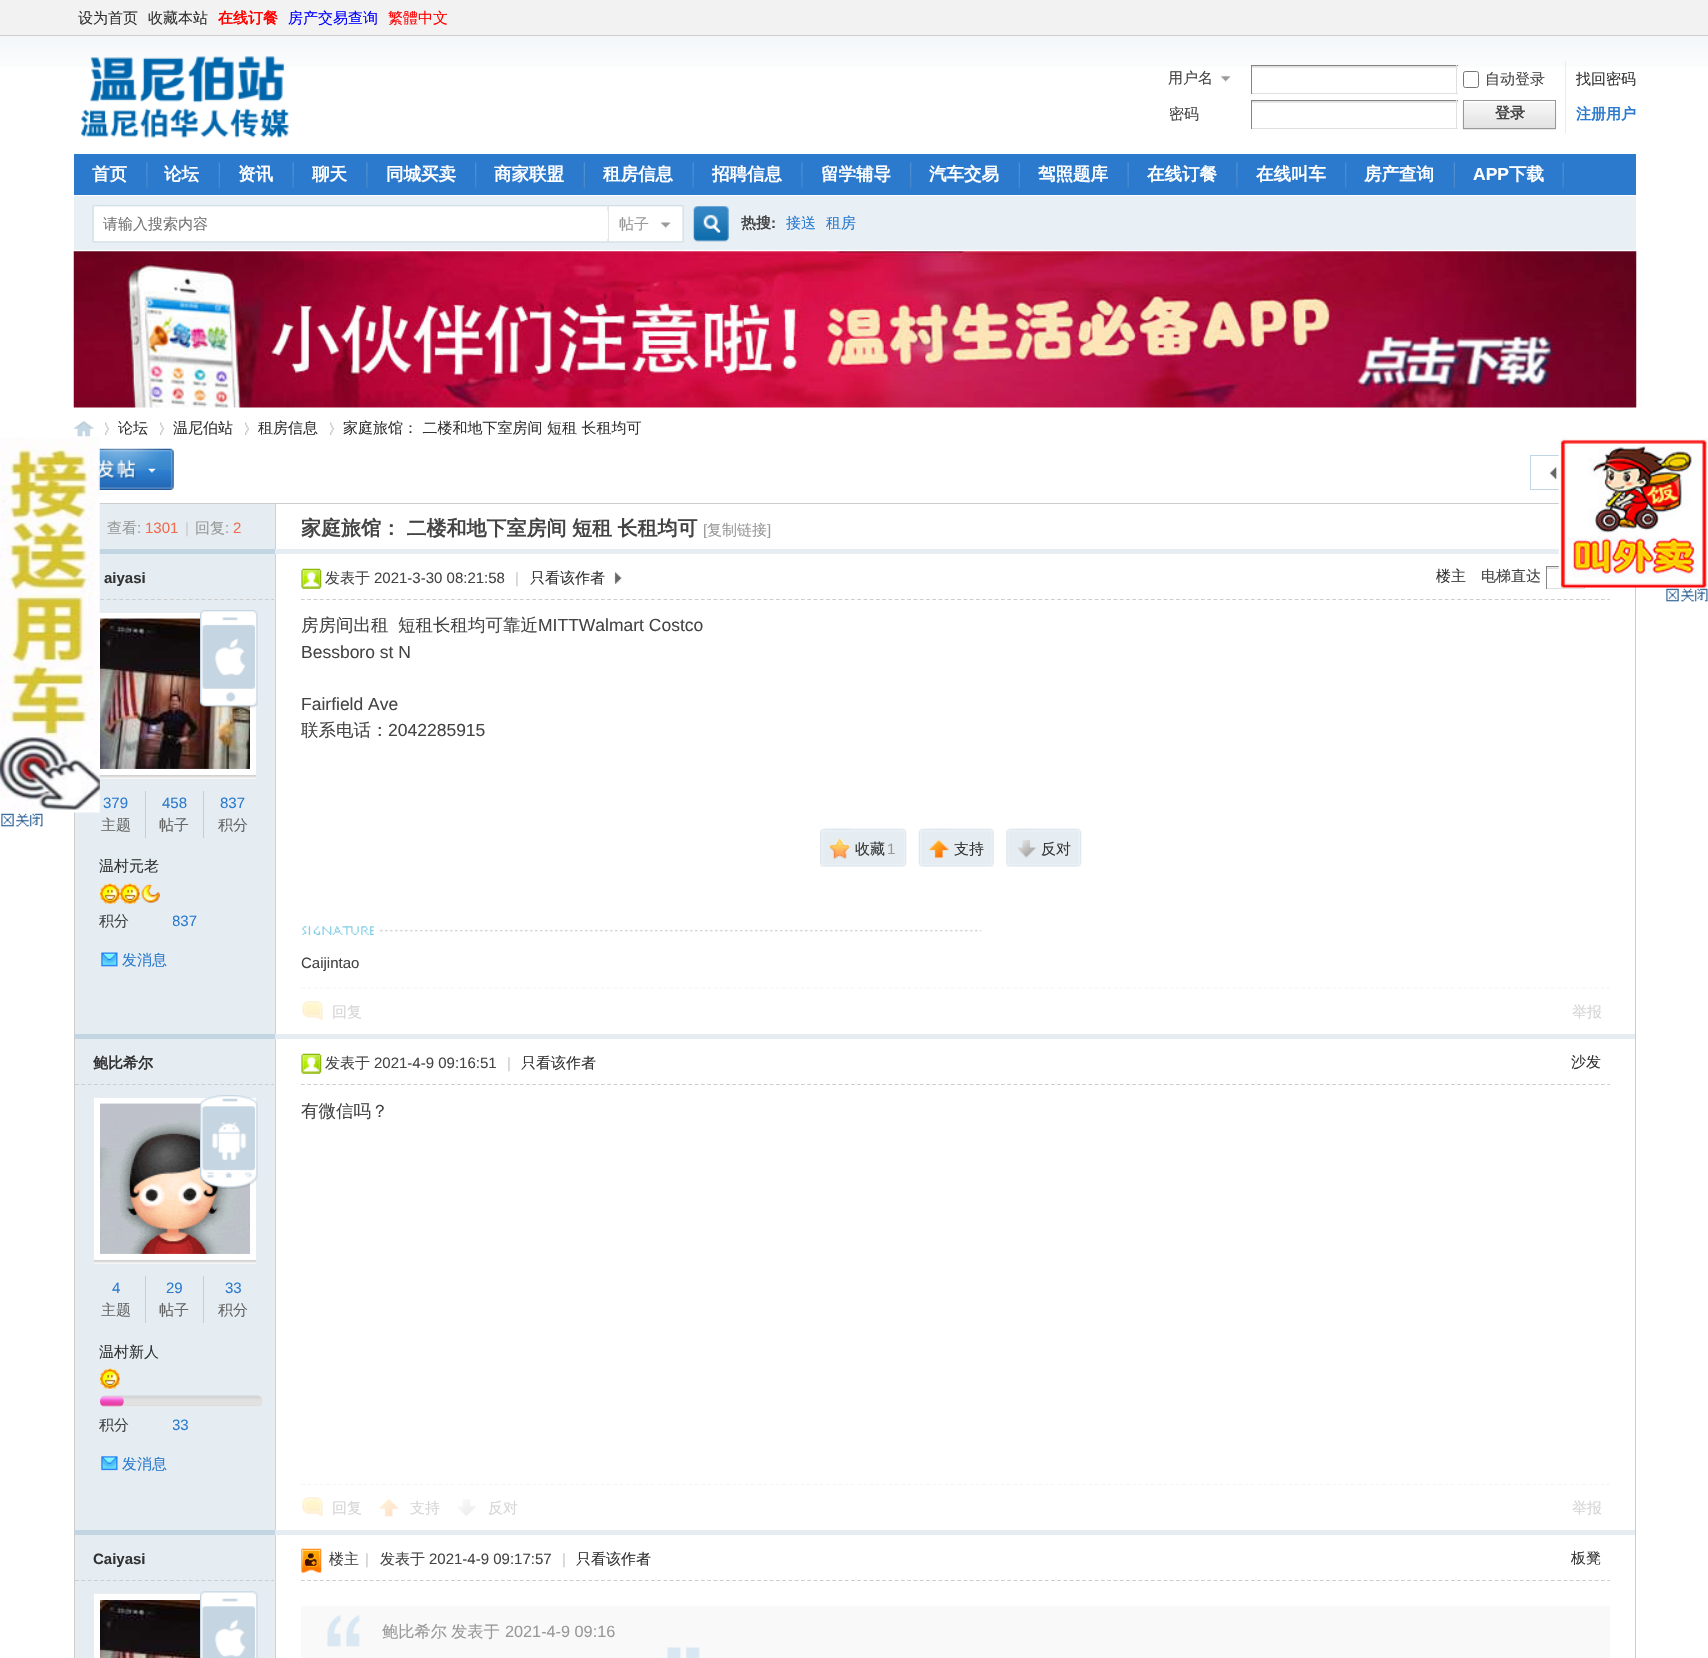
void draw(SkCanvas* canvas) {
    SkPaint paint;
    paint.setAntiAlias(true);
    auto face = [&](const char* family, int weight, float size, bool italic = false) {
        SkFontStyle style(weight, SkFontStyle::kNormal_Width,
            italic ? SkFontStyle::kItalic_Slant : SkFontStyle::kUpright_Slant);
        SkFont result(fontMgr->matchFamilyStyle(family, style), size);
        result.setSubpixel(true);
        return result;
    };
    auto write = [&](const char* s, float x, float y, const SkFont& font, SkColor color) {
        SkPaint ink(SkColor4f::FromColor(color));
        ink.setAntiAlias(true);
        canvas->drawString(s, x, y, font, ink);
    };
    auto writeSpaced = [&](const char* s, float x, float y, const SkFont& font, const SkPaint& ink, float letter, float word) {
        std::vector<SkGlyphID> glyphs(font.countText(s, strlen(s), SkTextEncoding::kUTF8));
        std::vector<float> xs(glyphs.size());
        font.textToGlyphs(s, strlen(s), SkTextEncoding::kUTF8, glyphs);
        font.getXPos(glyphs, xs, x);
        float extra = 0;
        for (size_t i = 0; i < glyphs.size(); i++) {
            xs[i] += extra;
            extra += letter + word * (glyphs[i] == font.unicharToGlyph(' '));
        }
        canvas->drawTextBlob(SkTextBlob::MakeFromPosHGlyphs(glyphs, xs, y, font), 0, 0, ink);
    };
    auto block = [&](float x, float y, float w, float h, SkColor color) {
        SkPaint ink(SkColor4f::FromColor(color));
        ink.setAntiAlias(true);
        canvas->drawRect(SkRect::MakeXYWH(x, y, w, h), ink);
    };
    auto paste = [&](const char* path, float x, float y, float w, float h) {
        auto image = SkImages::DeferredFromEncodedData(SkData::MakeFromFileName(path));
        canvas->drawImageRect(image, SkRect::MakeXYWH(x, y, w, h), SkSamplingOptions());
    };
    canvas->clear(SK_ColorWHITE);
    paste("pic1.png", 0, 36, 1708, 31);
    block(0, 0, 1708, 35, SkColorSetRGB(242, 242, 242));
    block(0, 35, 1708, 1, SkColorSetRGB(205, 205, 205));
    auto kFont1 = face("WenQuanYi Zen Hei", 500, 15);
    write("设为首页", 78, 23, kFont1, SkColorSetRGB(51, 51, 51));
    write("收藏本站", 148, 23, kFont1, SkColorSetRGB(51, 51, 51));
    auto kFont2 = face("WenQuanYi Zen Hei", 700, 15);
    write("在线订餐", 218, 23, kFont2, SkColorSetRGB(255, 0, 0));
    write("房产交易查询", 288, 23, kFont1, SkColorSetRGB(0, 0, 255));
    write("繁體中文", 388, 23, kFont1, SkColorSetRGB(255, 0, 0));
    paste("pic2.png", 81, 56, 208, 82);
    paste("pic3.png", 1221, 76, 10, 6);
    write("用户名", 1168, 83, kFont1, SkColorSetRGB(68, 68, 68));
    block(1252, 66, 206, 1, SK_ColorWHITE);
    paste("pic4.png", 1252, 66, 206, 2);
    block(1251, 65, 207, 1, SkColorSetRGB(132, 132, 132));
    block(1456, 65, 1, 29, SkColorSetRGB(224, 224, 224));
    block(1251, 93, 207, 1, SkColorSetRGB(224, 224, 224));
    block(1251, 65, 1, 29, SkColorSetRGB(132, 132, 132));
    paint.setStyle(SkPaint::kStroke_Style);
    paint.setStrokeWidth(1);
    paint.setColor(SkColorSetRGB(118, 118, 118));
    canvas->drawRoundRect(SkRect::MakeXYWH(1463.5f, 71.5f, 15, 16), 2, 2, paint);
    write("自动登录", 1485, 84, kFont1, SkColorSetRGB(68, 68, 68));
    write("找回密码", 1576, 84, kFont1, SkColorSetRGB(51, 51, 51));
    write("密码", 1169, 119, kFont1, SkColorSetRGB(68, 68, 68));
    paste("pic4.png", 1252, 101, 206, 2);
    block(1251, 100, 207, 1, SkColorSetRGB(132, 132, 132));
    block(1456, 100, 1, 29, SkColorSetRGB(224, 224, 224));
    block(1251, 128, 207, 1, SkColorSetRGB(224, 224, 224));
    block(1251, 100, 1, 29, SkColorSetRGB(132, 132, 132));
    block(1565, 61, 1, 72, SkColorSetRGB(229, 237, 242));
    block(1463, 129, 93, 1, SkColorSetRGB(229, 229, 229));
    paste("pic5.png", 1462, 101, 95, 28);
    paint.setColor(SkColorSetRGB(153, 153, 153));
    canvas->drawRect(SkRect::MakeXYWH(1463.5f, 100.5f, 92, 28), paint);
    write("登录", 1495, 118, kFont2, SkColorSetRGB(68, 68, 68));
    write("注册用户", 1576, 119, kFont2, SkColorSetRGB(43, 122, 205));
    block(74, 154, 1562, 41, SkColorSetRGB(43, 122, 205));
    paste("pic6.png", 146, 162, 2, 26);
    auto kFont3 = face("WenQuanYi Zen Hei", 700, 17.5f);
    write("首页", 92, 180, kFont3, SK_ColorWHITE);
    paste("pic7.png", 218, 162, 2, 26);
    write("论坛", 164, 180, kFont3, SK_ColorWHITE);
    paste("pic8.png", 292, 162, 2, 26);
    write("资讯", 238, 180, kFont3, SK_ColorWHITE);
    paste("pic6.png", 366, 162, 2, 26);
    write("聊天", 312, 180, kFont3, SK_ColorWHITE);
    paste("pic9.png", 475, 162, 2, 26);
    write("同城买卖", 386, 180, kFont3, SK_ColorWHITE);
    paste("pic7.png", 583, 162, 2, 26);
    write("商家联盟", 494, 180, kFont3, SK_ColorWHITE);
    paste("pic10.png", 692, 162, 2, 26);
    write("租房信息", 603, 180, kFont3, SK_ColorWHITE);
    paste("pic6.png", 801, 162, 2, 26);
    write("招聘信息", 712, 180, kFont3, SK_ColorWHITE);
    paste("pic9.png", 910, 162, 2, 26);
    write("留学辅导", 821, 180, kFont3, SK_ColorWHITE);
    paste("pic7.png", 1018, 162, 2, 26);
    write("汽车交易", 929, 180, kFont3, SK_ColorWHITE);
    paste("pic8.png", 1127, 162, 2, 26);
    write("驾照题库", 1038, 180, kFont3, SK_ColorWHITE);
    paste("pic6.png", 1236, 162, 2, 26);
    write("在线订餐", 1147, 180, kFont3, SK_ColorWHITE);
    paste("pic9.png", 1345, 162, 2, 26);
    write("在线叫车", 1256, 180, kFont3, SK_ColorWHITE);
    paste("pic7.png", 1453, 162, 2, 26);
    write("房产查询", 1364, 180, kFont3, SK_ColorWHITE);
    paste("pic10.png", 1562, 162, 2, 26);
    auto kFont4 = face("Liberation Sans", 700, 17.5f);
    write("APP", 1473, 180, kFont4, SK_ColorWHITE);
    write("下载", 1509, 180, kFont3, SK_ColorWHITE);
    block(74, 196, 1562, 54, SkColorSetRGB(232, 239, 245));
    paste("pic11.png", 92, 205, 8, 38);
    paste("pic12.png", 100, 205, 508, 38);
    paste("pic13.png", 607, 205, 77, 38);
    block(607, 211, 1, 28, SK_ColorWHITE);
    write("请输入搜索内容", 103, 229, kFont1, SkColorSetRGB(117, 117, 117));
    write("帖子", 619, 229, kFont1, SkColorSetRGB(153, 153, 153));
    paste("pic14.png", 693, 206, 36, 36);
    write("热搜", 741, 228, kFont2, SkColorSetRGB(68, 68, 68));
    auto kFont5 = face("Liberation Sans", 700, 15);
    write(":", 771, 228, kFont5, SkColorSetRGB(68, 68, 68));
    write("接送", 786, 228, kFont1, SkColorSetRGB(43, 122, 205));
    write("租房", 826, 228, kFont1, SkColorSetRGB(43, 122, 205));
    paste("pic20.png", 98, 448, 76, 42);
    paint.setColor(SkColorSetRGB(205, 205, 205));
    canvas->drawRect(SkRect::MakeXYWH(74.5f, 503.5f, 1561, 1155), paint);
    block(98, 504, 177, 45, SkColorSetRGB(229, 237, 242));
    block(98, 549, 177, 5, SkColorSetRGB(194, 213, 227));
    block(75, 554, 200, 480, SkColorSetRGB(229, 237, 242));
    canvas->save();
    canvas->clipRect(SkRect::MakeXYWH(75, 554, 199, 434));
    paint.setStrokeWidth(1.2f);
    paint.setPathEffect(SkDashPathEffect::Make({{3.75f, 2.58f}}, 0));
    canvas->drawPath(SkPathBuilder().moveTo(75, 599.5f).lineTo(275, 599.5f).detach(), paint);
    paint.setPathEffect(nullptr);
    canvas->restore();
    block(98, 613, 158, 166, SK_ColorWHITE);
    paste("pic23.png", 98, 618, 158, 161);
    paste("pic15.png", 0, 437, 100, 376);
    paste("pic16.png", 1, 813, 42, 14);
    paste("pic17.png", 73, 251, 1564, 157);
    paste("pic18.png", 73, 421, 21, 16);
    paste("pic19.png", 105, 422, 4, 13);
    write("论坛", 118, 433, kFont1, SkColorSetRGB(51, 51, 51));
    paste("pic19.png", 160, 422, 4, 13);
    write("温尼伯站", 173, 433, kFont1, SkColorSetRGB(51, 51, 51));
    paste("pic19.png", 245, 422, 4, 13);
    write("租房信息", 258, 433, kFont1, SkColorSetRGB(51, 51, 51));
    paste("pic19.png", 330, 422, 4, 13);
    write("家庭旅馆： 二楼和地下室房间 短租 长租均可", 343, 433, kFont1, SkColorSetRGB(51, 51, 51));
    paste("pic21.png", 1549, 467, 8, 12);
    paint.setStrokeWidth(1);
    paint.setColor(SkColorSetRGB(194, 213, 227));
    canvas->drawRect(SkRect::MakeXYWH(1530.5f, 455.5f, 105, 34), paint);
    block(275, 504, 1, 46, SkColorSetRGB(194, 213, 227));
    write("查看", 107, 533, kFont1, SkColorSetRGB(153, 153, 153));
    auto kFont6 = face("Liberation Sans", 400, 15);
    write(":", 137, 533, kFont6, SkColorSetRGB(153, 153, 153));
    write("1301", 145, 533, kFont6, SkColorSetRGB(242, 108, 79));
    write("|", 185, 533, kFont6, SkColorSetRGB(204, 204, 204));
    write("回复", 195, 533, kFont1, SkColorSetRGB(153, 153, 153));
    write(":", 225, 533, kFont6, SkColorSetRGB(153, 153, 153));
    write("2", 233, 533, kFont6, SkColorSetRGB(242, 108, 79));
    auto kFont7 = face("WenQuanYi Zen Hei", 700, 20);
    paint.setStyle(SkPaint::kFill_Style);
    paint.setColor(SkColorSetRGB(68, 68, 68));
    writeSpaced("家庭旅馆： 二楼和地下室房间 短租 长租均可", 301, 535, kFont7, paint, 0, -0.5f);
    write("[", 703, 535, kFont6, SkColorSetRGB(153, 153, 153));
    write("复制链接", 707, 535, kFont1, SkColorSetRGB(153, 153, 153));
    write("]", 767, 535, kFont6, SkColorSetRGB(153, 153, 153));
    block(275, 549, 1284, 5, SkColorSetRGB(229, 237, 242));
    write("aiyasi", 104, 583, kFont5, SkColorSetRGB(51, 51, 51));
    paste("pic24.png", 100, 618, 150, 151);
    paste("pic22.png", 200, 610, 58, 98);
    block(145, 791, 1, 47, SkColorSetRGB(204, 204, 204));
    write("379", 103, 808, kFont6, SkColorSetRGB(43, 122, 205));
    write("主题", 101, 830, kFont1, SkColorSetRGB(102, 102, 102));
    block(203, 791, 1, 47, SkColorSetRGB(204, 204, 204));
    write("458", 162, 808, kFont6, SkColorSetRGB(43, 122, 205));
    write("帖子", 159, 830, kFont1, SkColorSetRGB(102, 102, 102));
    write("837", 220, 808, kFont6, SkColorSetRGB(43, 122, 205));
    write("积分", 218, 830, kFont1, SkColorSetRGB(102, 102, 102));
    write("温村元老", 99, 871, kFont1, SkColorSetRGB(51, 51, 51));
    paste("pic25.png", 100, 883, 20, 21);
    paste("pic25.png", 120, 883, 20, 21);
    paste("pic26.png", 141, 883, 19, 20);
    write("积分", 99, 926, kFont1, SkColorSetRGB(68, 68, 68));
    canvas->save();
    canvas->clipRect(SkRect::MakeXYWH(173, 910, 87, 24));
    write("837", 172, 926, kFont6, SkColorSetRGB(43, 122, 205));
    canvas->restore();
    paste("pic27.png", 101, 952, 17, 15);
    write("发消息", 122, 965, kFont1, SkColorSetRGB(43, 122, 205));
    paint.setStyle(SkPaint::kStroke_Style);
    paint.setStrokeWidth(1.2f);
    paint.setColor(SkColorSetRGB(205, 205, 205));
    paint.setPathEffect(SkDashPathEffect::Make({{3.75f, 2.5f}}, 0));
    canvas->drawPath(SkPathBuilder().moveTo(301, 599.5f).lineTo(1610, 599.5f).detach(), paint);
    paint.setPathEffect(nullptr);
    paste("pic28.png", 301, 568, 21, 21);
    write("发表于", 325, 583, kFont1, SkColorSetRGB(68, 68, 68));
    write("2021-3-30 08:21:58", 374, 583, kFont6, SkColorSetRGB(68, 68, 68));
    write("|", 515, 583, kFont6, SkColorSetRGB(204, 204, 204));
    write("只看该作者", 530, 583, kFont1, SkColorSetRGB(51, 51, 51));
    paste("pic29.png", 614, 572, 8, 12);
    write("楼主", 1436, 581, kFont1, SkColorSetRGB(51, 51, 51));
    write("电梯直达", 1481, 581, kFont1, SkColorSetRGB(68, 68, 68));
    paste("pic30.png", 1547, 567, 12, 2);
    block(1546, 566, 13, 1, SkColorSetRGB(132, 132, 132));
    block(1584, 587, 1, 2, SkColorSetRGB(224, 224, 224));
    block(1546, 588, 39, 1, SkColorSetRGB(224, 224, 224));
    block(1546, 566, 1, 23, SkColorSetRGB(132, 132, 132));
    auto kFont8 = face("WenQuanYi Zen Hei", 500, 17.5f);
    write("房房间出租", 301, 631, kFont8, SkColorSetRGB(68, 68, 68));
    write("短租长租均可靠近", 398, 631, kFont8, SkColorSetRGB(68, 68, 68));
    auto kFont9 = face("Liberation Sans", 400, 17.5f);
    write("MITTWalmart Costco", 538, 631, kFont9, SkColorSetRGB(68, 68, 68));
    write("Bessboro st N", 301, 658, kFont9, SkColorSetRGB(68, 68, 68));
    write("Fairfield Ave", 301, 710, kFont9, SkColorSetRGB(68, 68, 68));
    write("联系电话：", 301, 736, kFont8, SkColorSetRGB(68, 68, 68));
    write("2042285915", 388, 736, kFont9, SkColorSetRGB(68, 68, 68));
    paste("pic31.png", 820, 828, 33, 39);
    paste("pic32.png", 830, 828, 77, 39);
    paste("pic33.png", 830, 838, 20, 21);
    write("收藏", 855, 854, kFont1, SkColorSetRGB(51, 51, 51));
    write("1", 887, 854, kFont6, SkColorSetRGB(153, 153, 153));
    paste("pic34.png", 918, 828, 34, 39);
    paste("pic35.png", 929, 828, 65, 39);
    paste("pic36.png", 928, 839, 21, 19);
    write("支持", 954, 854, kFont1, SkColorSetRGB(51, 51, 51));
    paste("pic37.png", 1006, 828, 33, 39);
    paste("pic38.png", 1016, 828, 66, 39);
    paste("pic39.png", 1017, 840, 20, 18);
    write("反对", 1041, 854, kFont1, SkColorSetRGB(51, 51, 51));
    paste("pic40.png", 302, 926, 680, 9);
    write("Caijintao", 301, 968, kFont6, SkColorSetRGB(68, 68, 68));
    block(275, 554, 1, 481, SkColorSetRGB(194, 213, 227));
    paint.setColor(SkColorSetRGB(245, 245, 245));
    paint.setPathEffect(SkDashPathEffect::Make({{3.75f, 2.5f}}, 0));
    canvas->drawPath(SkPathBuilder().moveTo(301, 988).lineTo(1610, 988).detach(), paint);
    paint.setPathEffect(nullptr);
    paste("pic41.png", 302, 1001, 21, 20);
    write("回复", 332, 1017, kFont1, SkColorSetRGB(214, 214, 214));
    write("举报", 1572, 1017, kFont1, SkColorSetRGB(214, 214, 214));
    block(75, 1034, 200, 5, SkColorSetRGB(194, 213, 227));
    block(275, 1034, 1360, 5, SkColorSetRGB(229, 237, 242));
    block(75, 1039, 200, 491, SkColorSetRGB(229, 237, 242));
    canvas->save();
    canvas->clipRect(SkRect::MakeXYWH(75, 1039, 199, 445));
    paint.setColor(SkColorSetRGB(205, 205, 205));
    paint.setPathEffect(SkDashPathEffect::Make({{3.75f, 2.58f}}, 0));
    canvas->drawPath(SkPathBuilder().moveTo(75, 1084.5f).lineTo(275, 1084.5f).detach(), paint);
    paint.setPathEffect(nullptr);
    canvas->restore();
    write("鲍比希尔", 93, 1068, kFont2, SkColorSetRGB(51, 51, 51));
    block(94, 1098, 162, 166, SK_ColorWHITE);
    paste("pic43.png", 94, 1103, 162, 161);
    paste("pic44.png", 100, 1103, 150, 151);
    paste("pic42.png", 200, 1095, 58, 94);
    block(145, 1276, 1, 47, SkColorSetRGB(204, 204, 204));
    write("4", 112, 1293, kFont6, SkColorSetRGB(43, 122, 205));
    write("主题", 101, 1315, kFont1, SkColorSetRGB(102, 102, 102));
    block(203, 1276, 1, 47, SkColorSetRGB(204, 204, 204));
    write("29", 166, 1293, kFont6, SkColorSetRGB(43, 122, 205));
    write("帖子", 159, 1315, kFont1, SkColorSetRGB(102, 102, 102));
    write("33", 225, 1293, kFont6, SkColorSetRGB(43, 122, 205));
    write("积分", 218, 1315, kFont1, SkColorSetRGB(102, 102, 102));
    write("温村新人", 99, 1357, kFont1, SkColorSetRGB(51, 51, 51));
    paste("pic25.png", 100, 1368, 20, 21);
    paste("pic45.png", 100, 1395, 163, 12);
    paste("pic46.png", 99, 1396, 25, 11);
    write("积分", 99, 1430, kFont1, SkColorSetRGB(68, 68, 68));
    canvas->save();
    canvas->clipRect(SkRect::MakeXYWH(173, 1414, 87, 24));
    write("33", 172, 1430, kFont6, SkColorSetRGB(43, 122, 205));
    canvas->restore();
    paste("pic47.png", 101, 1456, 17, 15);
    write("发消息", 122, 1469, kFont1, SkColorSetRGB(43, 122, 205));
    paint.setPathEffect(SkDashPathEffect::Make({{3.75f, 2.5f}}, 0));
    canvas->drawPath(SkPathBuilder().moveTo(301, 1084.5f).lineTo(1610, 1084.5f).detach(), paint);
    paint.setPathEffect(nullptr);
    paste("pic28.png", 301, 1053, 21, 21);
    write("发表于", 325, 1068, kFont1, SkColorSetRGB(68, 68, 68));
    write("2021-4-9 09:16:51", 374, 1068, kFont6, SkColorSetRGB(68, 68, 68));
    write("|", 507, 1068, kFont6, SkColorSetRGB(204, 204, 204));
    write("只看该作者", 521, 1068, kFont1, SkColorSetRGB(51, 51, 51));
    write("沙发", 1571, 1067, kFont1, SkColorSetRGB(51, 51, 51));
    write("有微信吗？", 301, 1117, kFont8, SkColorSetRGB(68, 68, 68));
    block(275, 1039, 1, 492, SkColorSetRGB(194, 213, 227));
    paint.setColor(SkColorSetRGB(245, 245, 245));
    paint.setPathEffect(SkDashPathEffect::Make({{3.75f, 2.5f}}, 0));
    canvas->drawPath(SkPathBuilder().moveTo(301, 1484.5f).lineTo(1610, 1484.5f).detach(), paint);
    paint.setPathEffect(nullptr);
    paste("pic48.png", 302, 1497, 21, 20);
    write("回复", 332, 1513, kFont1, SkColorSetRGB(214, 214, 214));
    paste("pic49.png", 379, 1498, 20, 19);
    write("支持", 410, 1513, kFont1, SkColorSetRGB(214, 214, 214));
    paste("pic50.png", 457, 1499, 19, 17);
    write("反对", 488, 1513, kFont1, SkColorSetRGB(214, 214, 214));
    write("举报", 1572, 1513, kFont1, SkColorSetRGB(214, 214, 214));
    block(75, 1530, 200, 5, SkColorSetRGB(194, 213, 227));
    block(275, 1530, 1360, 5, SkColorSetRGB(229, 237, 242));
    block(275, 1535, 1, 123, SkColorSetRGB(194, 213, 227));
    block(75, 1535, 200, 123, SkColorSetRGB(229, 237, 242));
    canvas->save();
    canvas->clipRect(SkRect::MakeXYWH(75, 1535, 199, 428));
    paint.setColor(SkColorSetRGB(205, 205, 205));
    paint.setPathEffect(SkDashPathEffect::Make({{3.75f, 2.58f}}, 0));
    canvas->drawPath(SkPathBuilder().moveTo(75, 1580.5f).lineTo(275, 1580.5f).detach(), paint);
    paint.setPathEffect(nullptr);
    canvas->restore();
    write("Caiyasi", 93, 1564, kFont5, SkColorSetRGB(51, 51, 51));
    block(94, 1594, 108, 64, SK_ColorWHITE);
    paste("pic51.png", 100, 1600, 100, 58);
    paste("pic52.png", 200, 1591, 58, 67);
    paint.setPathEffect(SkDashPathEffect::Make({{3.75f, 2.5f}}, 0));
    canvas->drawPath(SkPathBuilder().moveTo(301, 1580.5f).lineTo(1610, 1580.5f).detach(), paint);
    paint.setPathEffect(nullptr);
    paste("pic53.png", 301, 1548, 21, 25);
    write("楼主", 329, 1564, kFont1, SkColorSetRGB(68, 68, 68));
    write("|", 365, 1564, kFont6, SkColorSetRGB(204, 204, 204));
    write("发表于", 380, 1564, kFont1, SkColorSetRGB(68, 68, 68));
    write("2021-4-9 09:17:57", 429, 1564, kFont6, SkColorSetRGB(68, 68, 68));
    write("|", 562, 1564, kFont6, SkColorSetRGB(204, 204, 204));
    write("只看该作者", 576, 1564, kFont1, SkColorSetRGB(51, 51, 51));
    write("板凳", 1571, 1563, kFont1, SkColorSetRGB(51, 51, 51));
    block(301, 1606, 1309, 52, SkColorSetRGB(249, 249, 249));
    paste("pic54.png", 327, 1615, 33, 32);
    paste("pic55.png", 667, 1647, 33, 11);
    auto kFont10 = face("WenQuanYi Zen Hei", 500, 16.25f);
    write("鲍比希尔", 382, 1637, kFont10, SkColorSetRGB(153, 153, 153));
    write("发表于", 451, 1637, kFont10, SkColorSetRGB(153, 153, 153));
    auto kFont11 = face("Liberation Sans", 400, 16.25f);
    write("2021-4-9 09:16", 505, 1637, kFont11, SkColorSetRGB(153, 153, 153));
    paste("pic56.png", 1558, 437, 150, 151);
    paste("pic16.png", 1666, 588, 42, 14);
}
